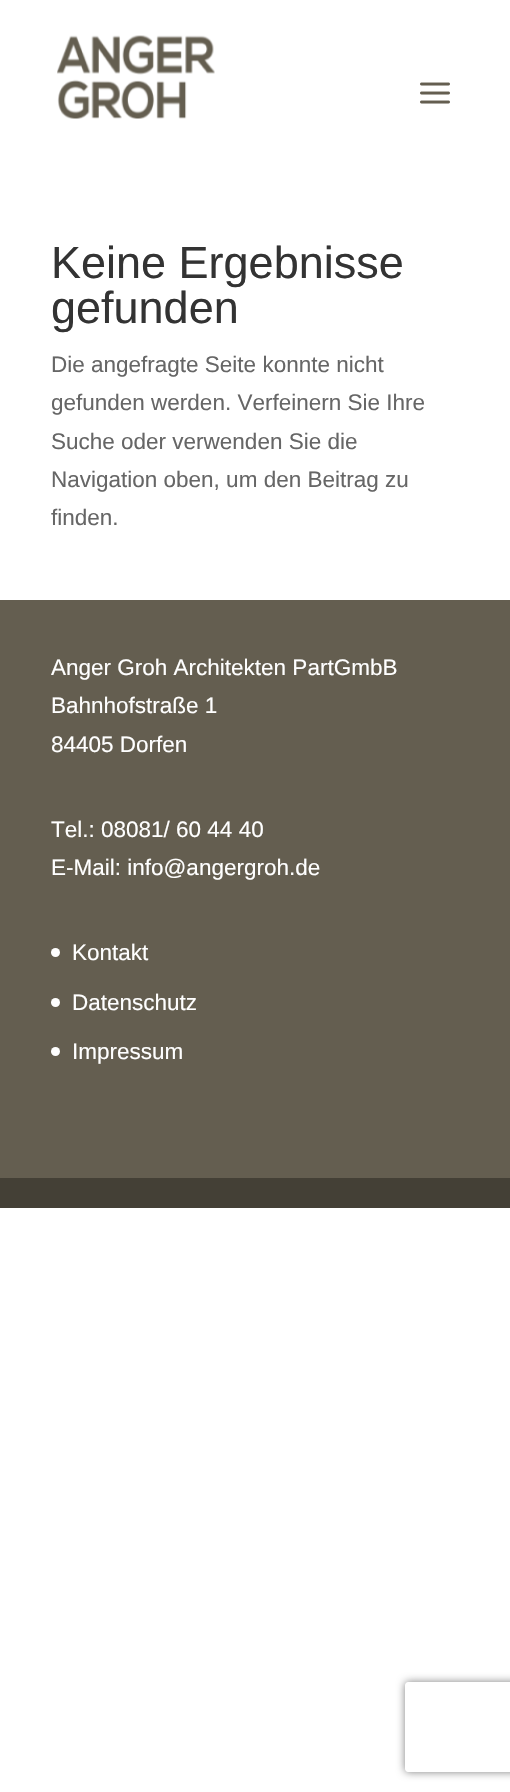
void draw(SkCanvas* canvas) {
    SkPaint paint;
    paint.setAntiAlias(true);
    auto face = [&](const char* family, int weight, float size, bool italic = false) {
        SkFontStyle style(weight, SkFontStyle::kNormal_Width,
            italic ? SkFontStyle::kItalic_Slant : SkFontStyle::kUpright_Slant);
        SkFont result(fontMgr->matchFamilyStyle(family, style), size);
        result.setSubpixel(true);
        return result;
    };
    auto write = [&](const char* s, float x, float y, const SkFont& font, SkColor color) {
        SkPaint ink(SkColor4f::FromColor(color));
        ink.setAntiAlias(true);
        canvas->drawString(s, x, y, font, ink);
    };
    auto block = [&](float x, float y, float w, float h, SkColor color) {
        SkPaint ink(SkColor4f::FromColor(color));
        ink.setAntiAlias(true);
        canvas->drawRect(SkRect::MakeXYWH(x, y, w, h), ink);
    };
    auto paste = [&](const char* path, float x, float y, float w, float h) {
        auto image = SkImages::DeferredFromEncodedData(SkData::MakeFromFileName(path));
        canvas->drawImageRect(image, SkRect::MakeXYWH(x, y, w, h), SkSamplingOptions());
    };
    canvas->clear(SK_ColorWHITE);
    paste("pic1.png", 57, 35, 158, 84);
    paste("pic2.png", 420, 82, 30, 22);
    auto kFont1 = face("Liberation Sans", 400, 45);
    write("Keine Ergebnisse", 51, 278, kFont1, SkColorSetRGB(51, 51, 51));
    write("gefunden", 51, 323, kFont1, SkColorSetRGB(51, 51, 51));
    auto kFont2 = face("Liberation Sans", 400, 22.5f);
    write("Die angefragte Seite konnte nicht", 51, 372, kFont2, SkColorSetRGB(102, 102, 102));
    write("gefunden werden. Verfeinern Sie Ihre", 51, 410, kFont2, SkColorSetRGB(102, 102, 102));
    write("Suche oder verwenden Sie die", 51, 449, kFont2, SkColorSetRGB(102, 102, 102));
    write("Navigation oben, um den Beitrag zu", 51, 487, kFont2, SkColorSetRGB(102, 102, 102));
    write("finden.", 51, 525, kFont2, SkColorSetRGB(102, 102, 102));
    block(0, 600, 510, 578, SkColorSetRGB(100, 94, 80));
    write("Anger Groh Architekten PartGmbB", 51, 675, kFont2, SK_ColorWHITE);
    write("Bahnhofstraße 1", 51, 713, kFont2, SK_ColorWHITE);
    write("84405 Dorfen", 51, 752, kFont2, SK_ColorWHITE);
    write("Tel.: 08081/ 60 44 40", 51, 837, kFont2, SK_ColorWHITE);
    write("E-Mail: info@angergroh.de", 51, 875, kFont2, SK_ColorWHITE);
    paint.setColor(SK_ColorWHITE);
    canvas->drawCircle(55.5f, 952.5f, 4.5f, paint);
    write("Kontakt", 72, 960, kFont2, SK_ColorWHITE);
    canvas->drawCircle(55.5f, 1002.5f, 4.5f, paint);
    write("Datenschutz", 72, 1010, kFont2, SK_ColorWHITE);
    canvas->drawCircle(55.5f, 1051.5f, 4.5f, paint);
    write("Impressum", 72, 1059, kFont2, SK_ColorWHITE);
    block(0, 1178, 510, 30, SkColorSetRGB(68, 64, 54));
    canvas->save();
    canvas->clipPath(SkPathBuilder(SkPathFillType::kEvenOdd).moveTo(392, 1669).lineTo(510, 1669).lineTo(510, 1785).lineTo(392, 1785).close().moveTo(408, 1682).lineTo(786, 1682).cubicTo(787.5f, 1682, 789, 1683.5f, 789, 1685).lineTo(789, 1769).cubicTo(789, 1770.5f, 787.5f, 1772, 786, 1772).lineTo(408, 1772).cubicTo(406.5f, 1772, 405, 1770.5f, 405, 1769).lineTo(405, 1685).cubicTo(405, 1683.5f, 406.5f, 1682, 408, 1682).close().detach(), true);
    paint.setColor(SkColorSetRGB(128, 128, 128));
    paint.setMaskFilter(SkMaskFilter::MakeBlur(kNormal_SkBlurStyle, 4));
    canvas->drawRoundRect(SkRect::MakeXYWH(405, 1682, 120, 90), 3, 3, paint);
    paint.setMaskFilter(nullptr);
    canvas->restore();
}
